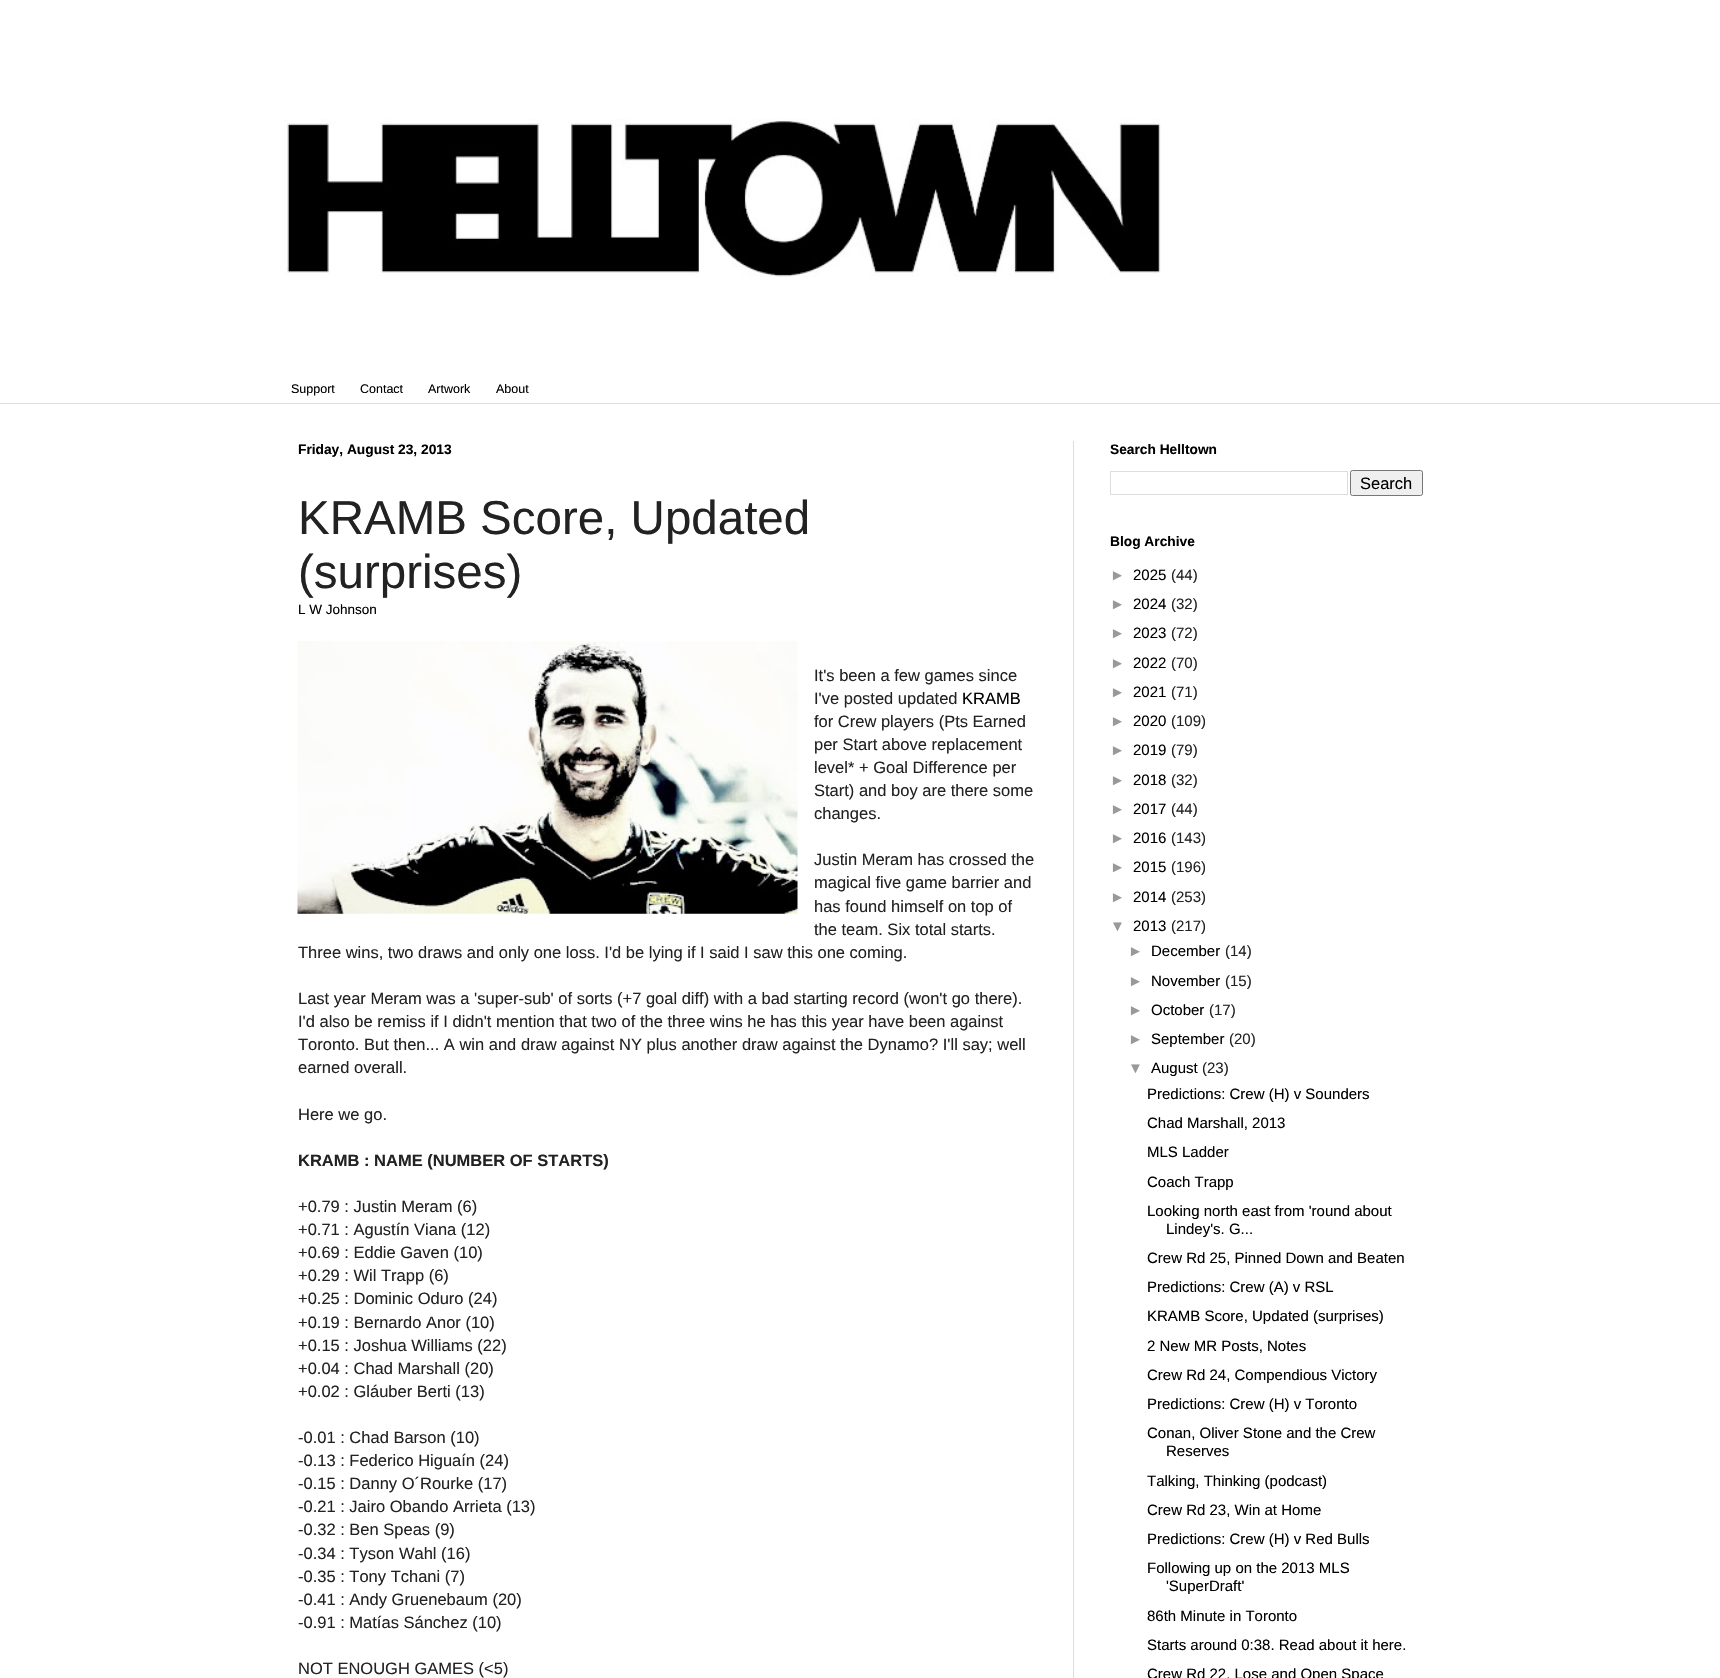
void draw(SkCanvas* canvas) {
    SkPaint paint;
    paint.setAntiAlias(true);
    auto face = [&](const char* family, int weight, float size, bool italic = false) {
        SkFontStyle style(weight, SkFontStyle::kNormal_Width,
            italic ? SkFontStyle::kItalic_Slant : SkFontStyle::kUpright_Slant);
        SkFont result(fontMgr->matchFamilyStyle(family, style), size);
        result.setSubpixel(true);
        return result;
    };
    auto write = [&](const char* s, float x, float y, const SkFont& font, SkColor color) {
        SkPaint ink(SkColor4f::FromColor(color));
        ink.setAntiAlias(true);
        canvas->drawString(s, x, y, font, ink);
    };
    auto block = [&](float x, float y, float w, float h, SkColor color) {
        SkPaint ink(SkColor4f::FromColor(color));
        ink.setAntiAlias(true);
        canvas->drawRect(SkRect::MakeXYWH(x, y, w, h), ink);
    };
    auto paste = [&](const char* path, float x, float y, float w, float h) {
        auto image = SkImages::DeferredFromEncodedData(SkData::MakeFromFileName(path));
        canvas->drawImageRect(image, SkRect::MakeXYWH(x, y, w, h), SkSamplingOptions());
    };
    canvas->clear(SK_ColorWHITE);
    paste("pic1.png", 284, 118, 877, 159);
    auto kFont1 = face("Liberation Sans", 400, 12.5f);
    write("Support", 291, 393, kFont1, SK_ColorBLACK);
    write("Contact", 360, 393, kFont1, SK_ColorBLACK);
    write("Artwork", 428, 393, kFont1, SK_ColorBLACK);
    write("About", 496, 393, kFont1, SK_ColorBLACK);
    block(0, 403, 1720, 1, SkColorSetRGB(221, 221, 221));
    block(1073, 441, 1, 1237, SkColorSetRGB(221, 221, 221));
    auto kFont2 = face("Liberation Sans", 700, 13.75f);
    write("Friday, August 23, 2013", 298, 454, kFont2, SK_ColorBLACK);
    auto kFont3 = face("Liberation Sans", 400, 47.5f);
    write("KRAMB Score, Updated", 298, 534, kFont3, SkColorSetRGB(34, 34, 34));
    write("(surprises)", 298, 588, kFont3, SkColorSetRGB(34, 34, 34));
    auto kFont4 = face("Liberation Sans", 400, 13.5f);
    write("L W Johnson", 298, 614, kFont4, SK_ColorBLACK);
    paste("pic2.png", 297, 641, 501, 273);
    auto kFont5 = face("Liberation Sans", 400, 16.5f);
    write("It's been a few games since", 814, 681, kFont5, SkColorSetRGB(34, 34, 34));
    write("I've posted updated", 814, 704, kFont5, SkColorSetRGB(34, 34, 34));
    write("KRAMB", 962, 704, kFont5, SK_ColorBLACK);
    write("for Crew players (Pts Earned", 814, 727, kFont5, SkColorSetRGB(34, 34, 34));
    write("per Start above replacement", 814, 750, kFont5, SkColorSetRGB(34, 34, 34));
    write("level* + Goal Difference per", 814, 773, kFont5, SkColorSetRGB(34, 34, 34));
    write("Start) and boy are there some", 814, 796, kFont5, SkColorSetRGB(34, 34, 34));
    write("changes.", 814, 819, kFont5, SkColorSetRGB(34, 34, 34));
    write("Justin Meram has crossed the", 814, 865, kFont5, SkColorSetRGB(34, 34, 34));
    write("magical five game barrier and", 814, 888, kFont5, SkColorSetRGB(34, 34, 34));
    write("has found himself on top of", 814, 912, kFont5, SkColorSetRGB(34, 34, 34));
    write("the team. Six total starts.", 814, 935, kFont5, SkColorSetRGB(34, 34, 34));
    write("Three wins, two draws and only one loss. I'd be lying if I said I saw this one coming.", 298, 958, kFont5, SkColorSetRGB(34, 34, 34));
    write("Last year Meram was a 'super-sub' of sorts (+7 goal diff) with a bad starting record (won't go there).", 298, 1004, kFont5, SkColorSetRGB(34, 34, 34));
    write("I'd also be remiss if I didn't mention that two of the three wins he has this year have been against", 298, 1027, kFont5, SkColorSetRGB(34, 34, 34));
    write("Toronto. But then... A win and draw against NY plus another draw against the Dynamo? I'll say; well", 298, 1050, kFont5, SkColorSetRGB(34, 34, 34));
    write("earned overall.", 298, 1073, kFont5, SkColorSetRGB(34, 34, 34));
    write("Here we go.", 298, 1120, kFont5, SkColorSetRGB(34, 34, 34));
    auto kFont6 = face("Liberation Sans", 700, 16.5f);
    write("KRAMB : NAME (NUMBER OF STARTS)", 298, 1166, kFont6, SkColorSetRGB(34, 34, 34));
    write("+0.79 : Justin Meram (6)", 298, 1212, kFont5, SkColorSetRGB(34, 34, 34));
    write("+0.71 : Agustín Viana (12)", 298, 1235, kFont5, SkColorSetRGB(34, 34, 34));
    write("+0.69 : Eddie Gaven (10)", 298, 1258, kFont5, SkColorSetRGB(34, 34, 34));
    write("+0.29 : Wil Trapp (6)", 298, 1281, kFont5, SkColorSetRGB(34, 34, 34));
    write("+0.25 : Dominic Oduro (24)", 298, 1304, kFont5, SkColorSetRGB(34, 34, 34));
    write("+0.19 : Bernardo Anor (10)", 298, 1328, kFont5, SkColorSetRGB(34, 34, 34));
    write("+0.15 : Joshua Williams (22)", 298, 1351, kFont5, SkColorSetRGB(34, 34, 34));
    write("+0.04 : Chad Marshall (20)", 298, 1374, kFont5, SkColorSetRGB(34, 34, 34));
    write("+0.02 : Gláuber Berti (13)", 298, 1397, kFont5, SkColorSetRGB(34, 34, 34));
    write("-0.01 : Chad Barson (10)", 298, 1443, kFont5, SkColorSetRGB(34, 34, 34));
    write("-0.13 : Federico Higuaín (24)", 298, 1466, kFont5, SkColorSetRGB(34, 34, 34));
    write("-0.15 : Danny O´Rourke (17)", 298, 1489, kFont5, SkColorSetRGB(34, 34, 34));
    write("-0.21 : Jairo Obando Arrieta (13)", 298, 1512, kFont5, SkColorSetRGB(34, 34, 34));
    write("-0.32 : Ben Speas (9)", 298, 1535, kFont5, SkColorSetRGB(34, 34, 34));
    write("-0.34 : Tyson Wahl (16)", 298, 1559, kFont5, SkColorSetRGB(34, 34, 34));
    write("-0.35 : Tony Tchani (7)", 298, 1582, kFont5, SkColorSetRGB(34, 34, 34));
    write("-0.41 : Andy Gruenebaum (20)", 298, 1605, kFont5, SkColorSetRGB(34, 34, 34));
    write("-0.91 : Matías Sánchez (10)", 298, 1628, kFont5, SkColorSetRGB(34, 34, 34));
    write("NOT ENOUGH GAMES (<5)", 298, 1674, kFont5, SkColorSetRGB(34, 34, 34));
    write("Search Helltown", 1110, 454, kFont2, SK_ColorBLACK);
    paint.setStyle(SkPaint::kStroke_Style);
    paint.setStrokeWidth(1);
    paint.setColor(SkColorSetRGB(221, 221, 221));
    canvas->drawRect(SkRect::MakeXYWH(1110.5f, 471.5f, 237, 23), paint);
    paint.setStyle(SkPaint::kFill_Style);
    paint.setColor(SkColorSetRGB(239, 239, 239));
    canvas->drawRoundRect(SkRect::MakeXYWH(1350.5f, 470.5f, 72, 25), 2, 2, paint);
    paint.setStyle(SkPaint::kStroke_Style);
    paint.setColor(SkColorSetRGB(118, 118, 118));
    canvas->drawRoundRect(SkRect::MakeXYWH(1350.5f, 470.5f, 72, 25), 2, 2, paint);
    write("Search", 1360, 489, kFont5, SK_ColorBLACK);
    write("Blog Archive", 1110, 546, kFont2, SK_ColorBLACK);
    auto kFont7 = face("Liberation Sans", 400, 15);
    write("►", 1110, 580, kFont7, SkColorSetRGB(153, 153, 153));
    write("2025", 1133, 580, kFont7, SK_ColorBLACK);
    write("(44)", 1171, 580, kFont7, SkColorSetRGB(34, 34, 34));
    write("►", 1110, 609, kFont7, SkColorSetRGB(153, 153, 153));
    write("2024", 1133, 609, kFont7, SK_ColorBLACK);
    write("(32)", 1171, 609, kFont7, SkColorSetRGB(34, 34, 34));
    write("►", 1110, 638, kFont7, SkColorSetRGB(153, 153, 153));
    write("2023", 1133, 638, kFont7, SK_ColorBLACK);
    write("(72)", 1171, 638, kFont7, SkColorSetRGB(34, 34, 34));
    write("►", 1110, 668, kFont7, SkColorSetRGB(153, 153, 153));
    write("2022", 1133, 668, kFont7, SK_ColorBLACK);
    write("(70)", 1171, 668, kFont7, SkColorSetRGB(34, 34, 34));
    write("►", 1110, 697, kFont7, SkColorSetRGB(153, 153, 153));
    write("2021", 1133, 697, kFont7, SK_ColorBLACK);
    write("(71)", 1171, 697, kFont7, SkColorSetRGB(34, 34, 34));
    write("►", 1110, 726, kFont7, SkColorSetRGB(153, 153, 153));
    write("2020", 1133, 726, kFont7, SK_ColorBLACK);
    write("(109)", 1171, 726, kFont7, SkColorSetRGB(34, 34, 34));
    write("►", 1110, 755, kFont7, SkColorSetRGB(153, 153, 153));
    write("2019", 1133, 755, kFont7, SK_ColorBLACK);
    write("(79)", 1171, 755, kFont7, SkColorSetRGB(34, 34, 34));
    write("►", 1110, 785, kFont7, SkColorSetRGB(153, 153, 153));
    write("2018", 1133, 785, kFont7, SK_ColorBLACK);
    write("(32)", 1171, 785, kFont7, SkColorSetRGB(34, 34, 34));
    write("►", 1110, 814, kFont7, SkColorSetRGB(153, 153, 153));
    write("2017", 1133, 814, kFont7, SK_ColorBLACK);
    write("(44)", 1171, 814, kFont7, SkColorSetRGB(34, 34, 34));
    write("►", 1110, 843, kFont7, SkColorSetRGB(153, 153, 153));
    write("2016", 1133, 843, kFont7, SK_ColorBLACK);
    write("(143)", 1171, 843, kFont7, SkColorSetRGB(34, 34, 34));
    write("►", 1110, 872, kFont7, SkColorSetRGB(153, 153, 153));
    write("2015", 1133, 872, kFont7, SK_ColorBLACK);
    write("(196)", 1171, 872, kFont7, SkColorSetRGB(34, 34, 34));
    write("►", 1110, 902, kFont7, SkColorSetRGB(153, 153, 153));
    write("2014", 1133, 902, kFont7, SK_ColorBLACK);
    write("(253)", 1171, 902, kFont7, SkColorSetRGB(34, 34, 34));
    write("▼", 1110, 931, kFont7, SkColorSetRGB(153, 153, 153));
    write("2013", 1133, 931, kFont7, SK_ColorBLACK);
    write("(217)", 1171, 931, kFont7, SkColorSetRGB(34, 34, 34));
    write("►", 1128, 956, kFont7, SkColorSetRGB(153, 153, 153));
    write("December", 1151, 956, kFont7, SK_ColorBLACK);
    write("(14)", 1225, 956, kFont7, SkColorSetRGB(34, 34, 34));
    write("►", 1128, 986, kFont7, SkColorSetRGB(153, 153, 153));
    write("November", 1151, 986, kFont7, SK_ColorBLACK);
    write("(15)", 1225, 986, kFont7, SkColorSetRGB(34, 34, 34));
    write("►", 1128, 1015, kFont7, SkColorSetRGB(153, 153, 153));
    write("October", 1151, 1015, kFont7, SK_ColorBLACK);
    write("(17)", 1209, 1015, kFont7, SkColorSetRGB(34, 34, 34));
    write("►", 1128, 1044, kFont7, SkColorSetRGB(153, 153, 153));
    write("September", 1151, 1044, kFont7, SK_ColorBLACK);
    write("(20)", 1229, 1044, kFont7, SkColorSetRGB(34, 34, 34));
    write("▼", 1128, 1073, kFont7, SkColorSetRGB(153, 153, 153));
    write("August", 1151, 1073, kFont7, SK_ColorBLACK);
    write("(23)", 1202, 1073, kFont7, SkColorSetRGB(34, 34, 34));
    write("Predictions: Crew (H) v Sounders", 1147, 1099, kFont7, SK_ColorBLACK);
    write("Chad Marshall, 2013", 1147, 1128, kFont7, SK_ColorBLACK);
    write("MLS Ladder", 1147, 1157, kFont7, SK_ColorBLACK);
    write("Coach Trapp", 1147, 1187, kFont7, SK_ColorBLACK);
    write("Looking north east from 'round about", 1147, 1216, kFont7, SK_ColorBLACK);
    write("Lindey's. G...", 1166, 1234, kFont7, SK_ColorBLACK);
    write("Crew Rd 25, Pinned Down and Beaten", 1147, 1263, kFont7, SK_ColorBLACK);
    write("Predictions: Crew (A) v RSL", 1147, 1292, kFont7, SK_ColorBLACK);
    write("KRAMB Score, Updated (surprises)", 1147, 1321, kFont7, SK_ColorBLACK);
    write("2 New MR Posts, Notes", 1147, 1351, kFont7, SK_ColorBLACK);
    write("Crew Rd 24, Compendious Victory", 1147, 1380, kFont7, SK_ColorBLACK);
    write("Predictions: Crew (H) v Toronto", 1147, 1409, kFont7, SK_ColorBLACK);
    write("Conan, Oliver Stone and the Crew", 1147, 1438, kFont7, SK_ColorBLACK);
    write("Reserves", 1166, 1456, kFont7, SK_ColorBLACK);
    write("Talking, Thinking (podcast)", 1147, 1486, kFont7, SK_ColorBLACK);
    write("Crew Rd 23, Win at Home", 1147, 1515, kFont7, SK_ColorBLACK);
    write("Predictions: Crew (H) v Red Bulls", 1147, 1544, kFont7, SK_ColorBLACK);
    write("Following up on the 2013 MLS", 1147, 1573, kFont7, SK_ColorBLACK);
    write("'SuperDraft'", 1166, 1591, kFont7, SK_ColorBLACK);
    write("86th Minute in Toronto", 1147, 1621, kFont7, SK_ColorBLACK);
    write("Starts around 0:38. Read about it here.", 1147, 1650, kFont7, SK_ColorBLACK);
    write("Crew Rd 22, Lose and Open Space", 1147, 1679, kFont7, SK_ColorBLACK);
}
